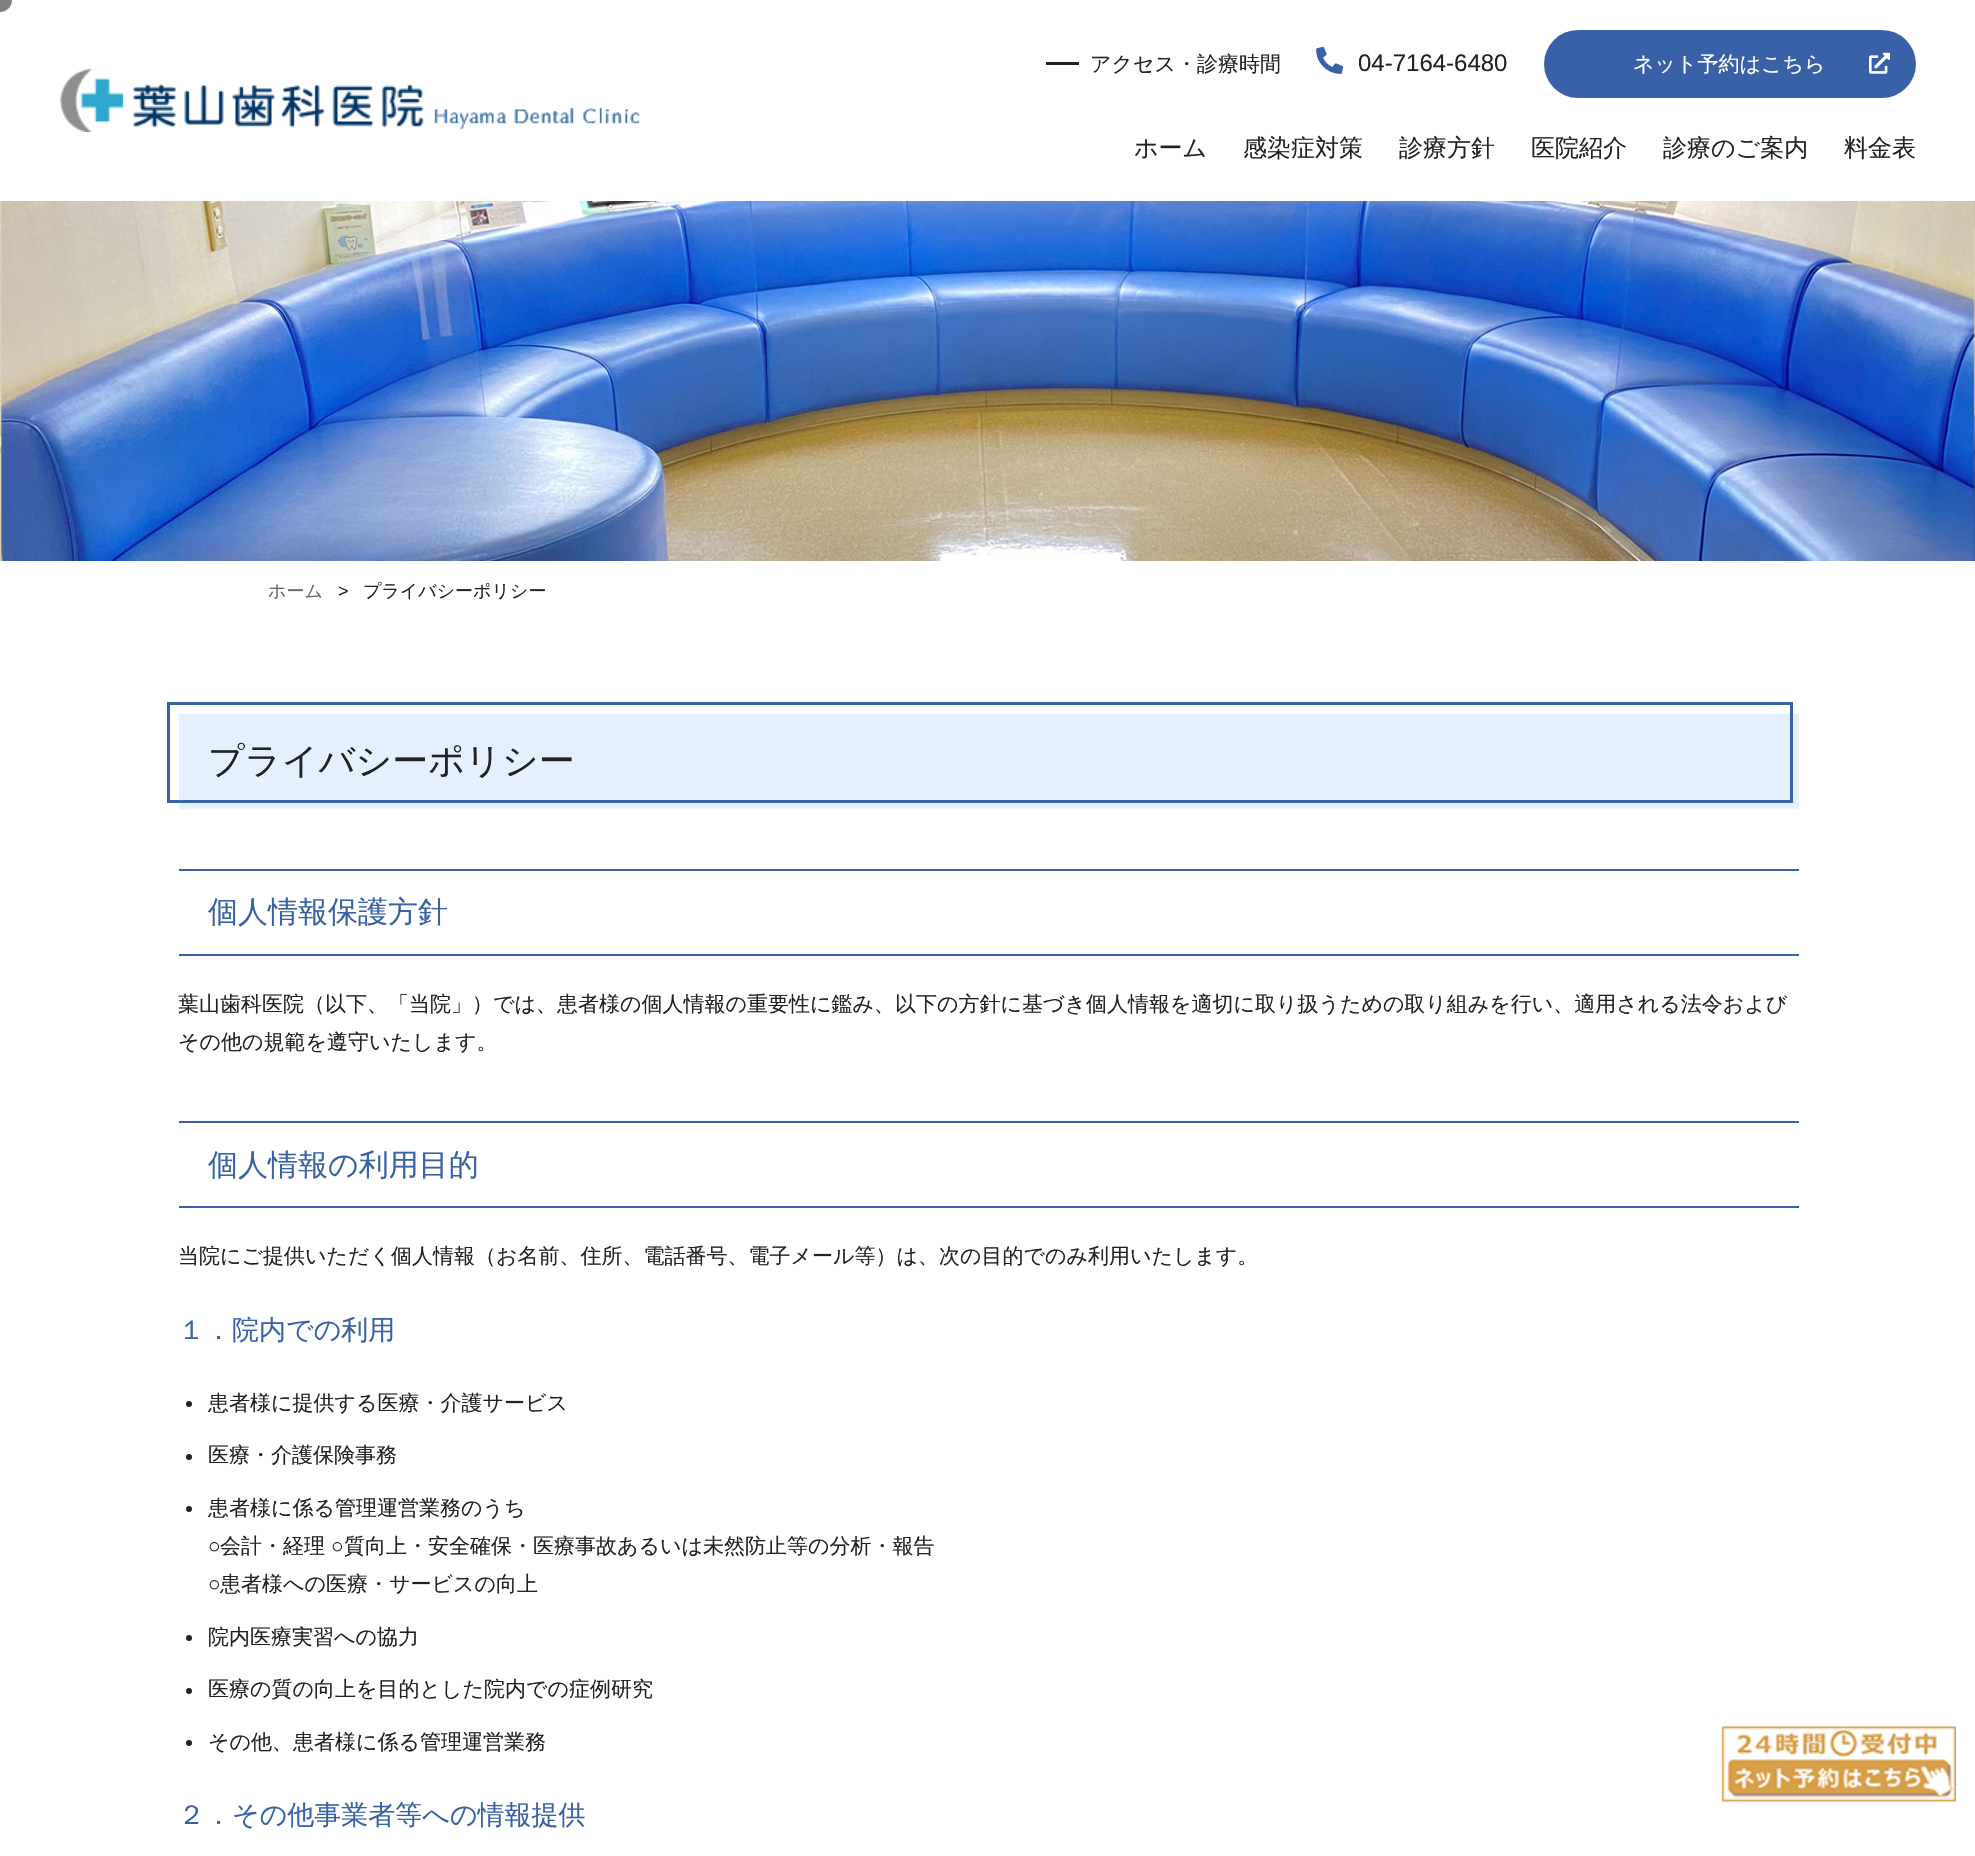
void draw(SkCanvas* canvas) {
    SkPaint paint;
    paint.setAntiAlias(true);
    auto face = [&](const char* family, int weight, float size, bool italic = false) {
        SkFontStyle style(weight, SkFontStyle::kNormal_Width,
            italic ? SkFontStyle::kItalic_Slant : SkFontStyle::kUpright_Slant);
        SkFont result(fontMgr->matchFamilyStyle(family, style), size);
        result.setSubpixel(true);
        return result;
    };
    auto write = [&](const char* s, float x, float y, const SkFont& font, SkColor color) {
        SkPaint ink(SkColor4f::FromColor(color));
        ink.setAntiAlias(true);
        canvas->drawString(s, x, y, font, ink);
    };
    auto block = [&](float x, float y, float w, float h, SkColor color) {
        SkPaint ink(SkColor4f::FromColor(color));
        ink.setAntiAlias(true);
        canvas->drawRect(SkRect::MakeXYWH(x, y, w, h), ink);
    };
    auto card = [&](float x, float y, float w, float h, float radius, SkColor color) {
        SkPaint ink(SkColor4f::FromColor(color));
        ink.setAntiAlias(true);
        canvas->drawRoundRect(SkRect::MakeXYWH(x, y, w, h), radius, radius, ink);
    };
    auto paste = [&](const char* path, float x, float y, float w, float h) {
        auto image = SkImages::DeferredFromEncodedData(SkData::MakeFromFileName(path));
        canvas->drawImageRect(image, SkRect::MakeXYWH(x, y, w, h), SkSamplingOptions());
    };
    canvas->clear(SK_ColorWHITE);
    paint.setColor(SkColorSetRGB(128, 128, 128));
    canvas->drawCircle(0, 0, 12, paint);
    paste("pic1.png", 60, 69, 580, 63);
    block(1046, 62, 33, 3, SkColorSetRGB(34, 34, 34));
    auto kFont1 = face("WenQuanYi Zen Hei", 500, 21);
    write("アクセス・診療時間", 1090, 71, kFont1, SkColorSetRGB(34, 34, 34));
    paste("pic2.png", 1316, 46, 28, 28);
    auto kFont2 = face("Liberation Sans", 400, 24);
    write("04-7164-6480", 1358, 71, kFont2, SkColorSetRGB(34, 34, 34));
    card(1544, 30, 372, 68, 34, SkColorSetRGB(56, 97, 167));
    write("ネット予約はこちら", 1633, 71, kFont1, SK_ColorWHITE);
    paste("pic3.png", 1869, 52, 21, 22);
    auto kFont3 = face("WenQuanYi Zen Hei", 500, 24);
    write("ホーム", 1134, 156, kFont3, SkColorSetRGB(34, 34, 34));
    write("感染症対策", 1243, 156, kFont3, SkColorSetRGB(34, 34, 34));
    write("診療方針", 1399, 156, kFont3, SkColorSetRGB(34, 34, 34));
    write("医院紹介", 1531, 156, kFont3, SkColorSetRGB(34, 34, 34));
    write("診療のご案内", 1663, 156, kFont3, SkColorSetRGB(34, 34, 34));
    write("料金表", 1844, 156, kFont3, SkColorSetRGB(34, 34, 34));
    paste("pic4.png", 0, 201, 1975, 360);
    auto kFont4 = face("WenQuanYi Zen Hei", 500, 18);
    write("ホーム", 268, 597, kFont4, SkColorSetRGB(102, 102, 102));
    auto kFont5 = face("Liberation Sans", 400, 18);
    write(">", 338, 597, kFont5, SkColorSetRGB(34, 34, 34));
    write("プライバシーポリシー", 363, 597, kFont4, SkColorSetRGB(34, 34, 34));
    block(179, 714, 1620, 95, SkColorSetRGB(229, 240, 255));
    paint.setStyle(SkPaint::kStroke_Style);
    paint.setStrokeWidth(3);
    paint.setColor(SkColorSetRGB(56, 97, 167));
    canvas->drawRect(SkRect::MakeXYWH(168.5f, 703.5f, 1623, 98), paint);
    auto kFont6 = face("WenQuanYi Zen Hei", 500, 36);
    write("プライバシーポリシー", 208, 773, kFont6, SkColorSetRGB(34, 34, 34));
    block(179, 869, 1620, 2, SkColorSetRGB(56, 97, 167));
    block(179, 954, 1620, 2, SkColorSetRGB(56, 97, 167));
    auto kFont7 = face("WenQuanYi Zen Hei", 500, 30);
    write("個人情報保護方針", 208, 922, kFont7, SkColorSetRGB(56, 97, 167));
    write("葉山歯科医院（以下、「当院」）では、患者様の個人情報の重要性に鑑み、以下の方針に基づき個人情報を適切に取り扱うための取り組みを行い、適用される法令および", 178, 1011, kFont1, SkColorSetRGB(34, 34, 34));
    write("その他の規範を遵守いたします。", 178, 1049, kFont1, SkColorSetRGB(34, 34, 34));
    block(179, 1121, 1620, 2, SkColorSetRGB(56, 97, 167));
    block(179, 1206, 1620, 2, SkColorSetRGB(56, 97, 167));
    write("個人情報の利用目的", 208, 1175, kFont7, SkColorSetRGB(56, 97, 167));
    write("当院にご提供いただく個人情報（お名前、住所、電話番号、電子メール等）は、次の目的でのみ利用いたします。", 178, 1263, kFont1, SkColorSetRGB(34, 34, 34));
    auto kFont8 = face("WenQuanYi Zen Hei", 500, 27);
    write("１．院内での利用", 178, 1339, kFont8, SkColorSetRGB(56, 97, 167));
    paint.setStyle(SkPaint::kFill_Style);
    paint.setColor(SkColorSetRGB(34, 34, 34));
    canvas->drawCircle(189, 1404, 3, paint);
    write("患者様に提供する医療・介護サービス", 208, 1410, kFont1, SkColorSetRGB(34, 34, 34));
    canvas->drawCircle(189, 1457, 3, paint);
    write("医療・介護保険事務", 208, 1462, kFont1, SkColorSetRGB(34, 34, 34));
    canvas->drawCircle(189, 1509, 3, paint);
    write("患者様に係る管理運営業務のうち", 208, 1515, kFont1, SkColorSetRGB(34, 34, 34));
    auto kFont9 = face("Liberation Sans", 400, 21);
    write("○", 208, 1553, kFont9, SkColorSetRGB(34, 34, 34));
    write("会計・経理", 220, 1553, kFont1, SkColorSetRGB(34, 34, 34));
    write("○", 331, 1553, kFont9, SkColorSetRGB(34, 34, 34));
    write("質向上・安全確保・医療事故あるいは未然防止等の分析・報告", 344, 1553, kFont1, SkColorSetRGB(34, 34, 34));
    write("○", 208, 1591, kFont9, SkColorSetRGB(34, 34, 34));
    write("患者様への医療・サービスの向上", 220, 1591, kFont1, SkColorSetRGB(34, 34, 34));
    canvas->drawCircle(189, 1638, 3, paint);
    write("院内医療実習への協力", 208, 1644, kFont1, SkColorSetRGB(34, 34, 34));
    canvas->drawCircle(189, 1691, 3, paint);
    write("医療の質の向上を目的とした院内での症例研究", 208, 1696, kFont1, SkColorSetRGB(34, 34, 34));
    canvas->drawCircle(189, 1743, 3, paint);
    write("その他、患者様に係る管理運営業務", 208, 1749, kFont1, SkColorSetRGB(34, 34, 34));
    write("２．その他事業者等への情報提供", 178, 1824, kFont8, SkColorSetRGB(56, 97, 167));
    paste("pic5.png", 1721, 1726, 235, 76);
}
